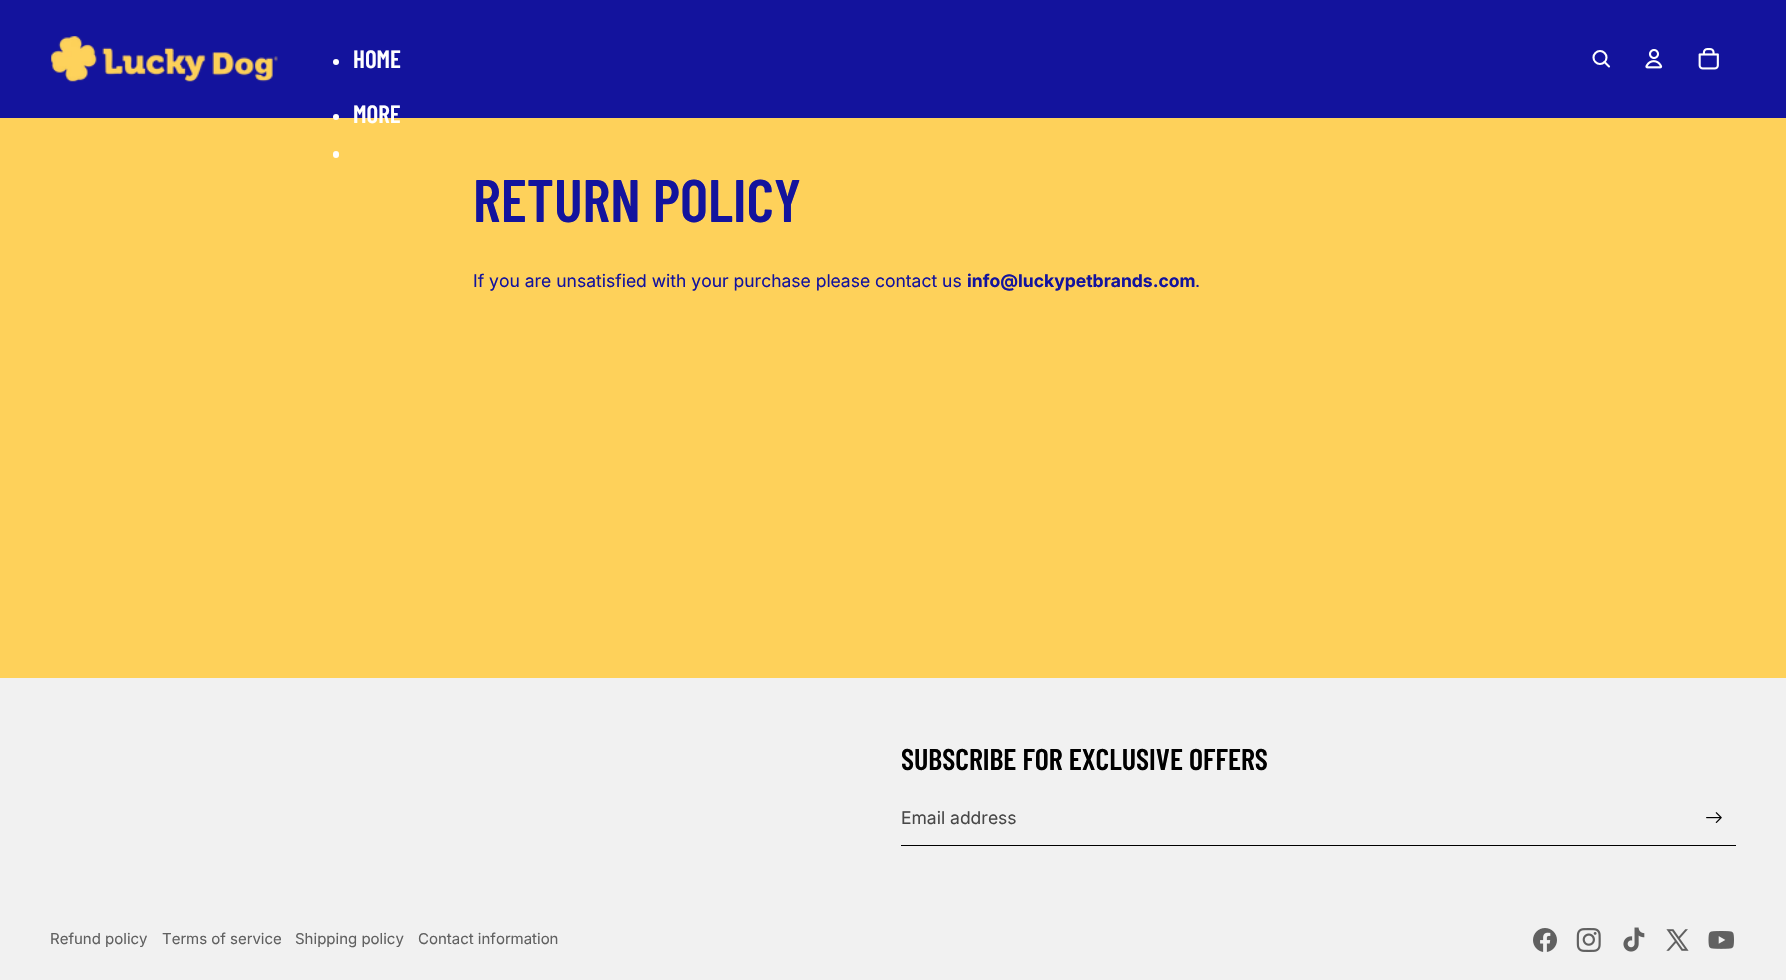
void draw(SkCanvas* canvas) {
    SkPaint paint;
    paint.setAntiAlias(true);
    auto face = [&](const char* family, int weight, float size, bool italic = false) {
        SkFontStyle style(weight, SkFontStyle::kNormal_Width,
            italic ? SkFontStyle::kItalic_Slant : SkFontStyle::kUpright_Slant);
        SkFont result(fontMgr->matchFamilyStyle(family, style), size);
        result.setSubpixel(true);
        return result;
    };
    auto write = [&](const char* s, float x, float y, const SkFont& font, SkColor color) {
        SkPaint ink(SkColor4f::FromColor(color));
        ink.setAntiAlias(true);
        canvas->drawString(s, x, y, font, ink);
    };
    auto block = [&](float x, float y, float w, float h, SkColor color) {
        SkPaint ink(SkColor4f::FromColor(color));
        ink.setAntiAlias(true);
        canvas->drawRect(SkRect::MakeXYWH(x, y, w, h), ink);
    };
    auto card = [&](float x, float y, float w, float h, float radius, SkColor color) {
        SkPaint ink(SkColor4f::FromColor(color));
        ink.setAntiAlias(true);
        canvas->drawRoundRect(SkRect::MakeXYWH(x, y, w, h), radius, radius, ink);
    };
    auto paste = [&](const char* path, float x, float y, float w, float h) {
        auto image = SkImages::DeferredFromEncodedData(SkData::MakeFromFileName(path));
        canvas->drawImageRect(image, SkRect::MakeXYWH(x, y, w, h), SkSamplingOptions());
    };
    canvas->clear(SkColorSetRGB(254, 209, 90));
    block(0, 0, 1786, 118, SkColorSetRGB(19, 19, 157));
    paste("pic1.png", 51, 36, 227, 46);
    paint.setColor(SK_ColorWHITE);
    canvas->drawCircle(336, 62, 3, paint);
    auto kFont1 = face("Barlow Condensed", 600, 25);
    write("HOME", 353, 68, kFont1, SK_ColorWHITE);
    canvas->drawCircle(336, 117, 3, paint);
    write("MORE", 353, 123, kFont1, SK_ColorWHITE);
    card(333, 151, 6, 7, 3, SK_ColorWHITE);
    paint.setStyle(SkPaint::kStroke_Style);
    paint.setStrokeWidth(2.1f);
    canvas->drawCircle(1600, 57.5f, 6.5f, paint);
    paint.setStrokeCap(SkPaint::kRound_Cap);
    paint.setStrokeJoin(SkPaint::kRound_Join);
    canvas->drawPath(SkPathBuilder().moveTo(1604.5f, 62).lineTo(1609, 66.5f).detach(), paint);
    paste("pic2.png", 1645, 49, 18, 20);
    paste("pic3.png", 1698, 48, 21, 22);
    auto kFont2 = face("Barlow Condensed", 600, 60);
    write("RETURN POLICY", 473, 222, kFont2, SkColorSetRGB(19, 19, 157));
    auto kFont3 = face("Inter", 400, 17.5f);
    write("If you are unsatisfied with your purchase please contact us", 473, 287, kFont3, SkColorSetRGB(19, 19, 157));
    auto kFont4 = face("Inter", 700, 17.5f);
    write("info@luckypetbrands.com", 967, 287, kFont4, SkColorSetRGB(19, 19, 157));
    write(".", 1195, 287, kFont3, SkColorSetRGB(19, 19, 157));
    block(0, 678, 1786, 302, SkColorSetRGB(241, 241, 241));
    auto kFont5 = face("Barlow Condensed", 600, 30);
    write("SUBSCRIBE FOR EXCLUSIVE OFFERS", 901, 770, kFont5, SK_ColorBLACK);
    paint.setStyle(SkPaint::kFill_Style);
    paint.setColor(SK_ColorBLACK);
    canvas->drawPath(SkPathBuilder().moveTo(901, 791).lineTo(901, 846).lineTo(1736, 846).lineTo(1736, 845).lineTo(901, 845).close().detach(), paint);
    write("Email address", 901, 824, kFont3, SkColorSetRGB(72, 72, 72));
    paste("pic4.png", 1706, 812, 16, 11);
    auto kFont6 = face("Inter", 400, 15);
    write("Refund policy", 50, 944, kFont6, SkColorSetRGB(96, 96, 96));
    write("Terms of service", 162, 944, kFont6, SkColorSetRGB(96, 96, 96));
    write("Shipping policy", 295, 944, kFont6, SkColorSetRGB(96, 96, 96));
    write("Contact information", 418, 944, kFont6, SkColorSetRGB(96, 96, 96));
    paste("pic5.png", 1533, 928, 24, 24);
    paste("pic6.png", 1576, 928, 25, 24);
    paste("pic7.png", 1623, 927, 22, 25);
    paste("pic8.png", 1666, 929, 23, 22);
    paste("pic9.png", 1708, 931, 26, 18);
}
